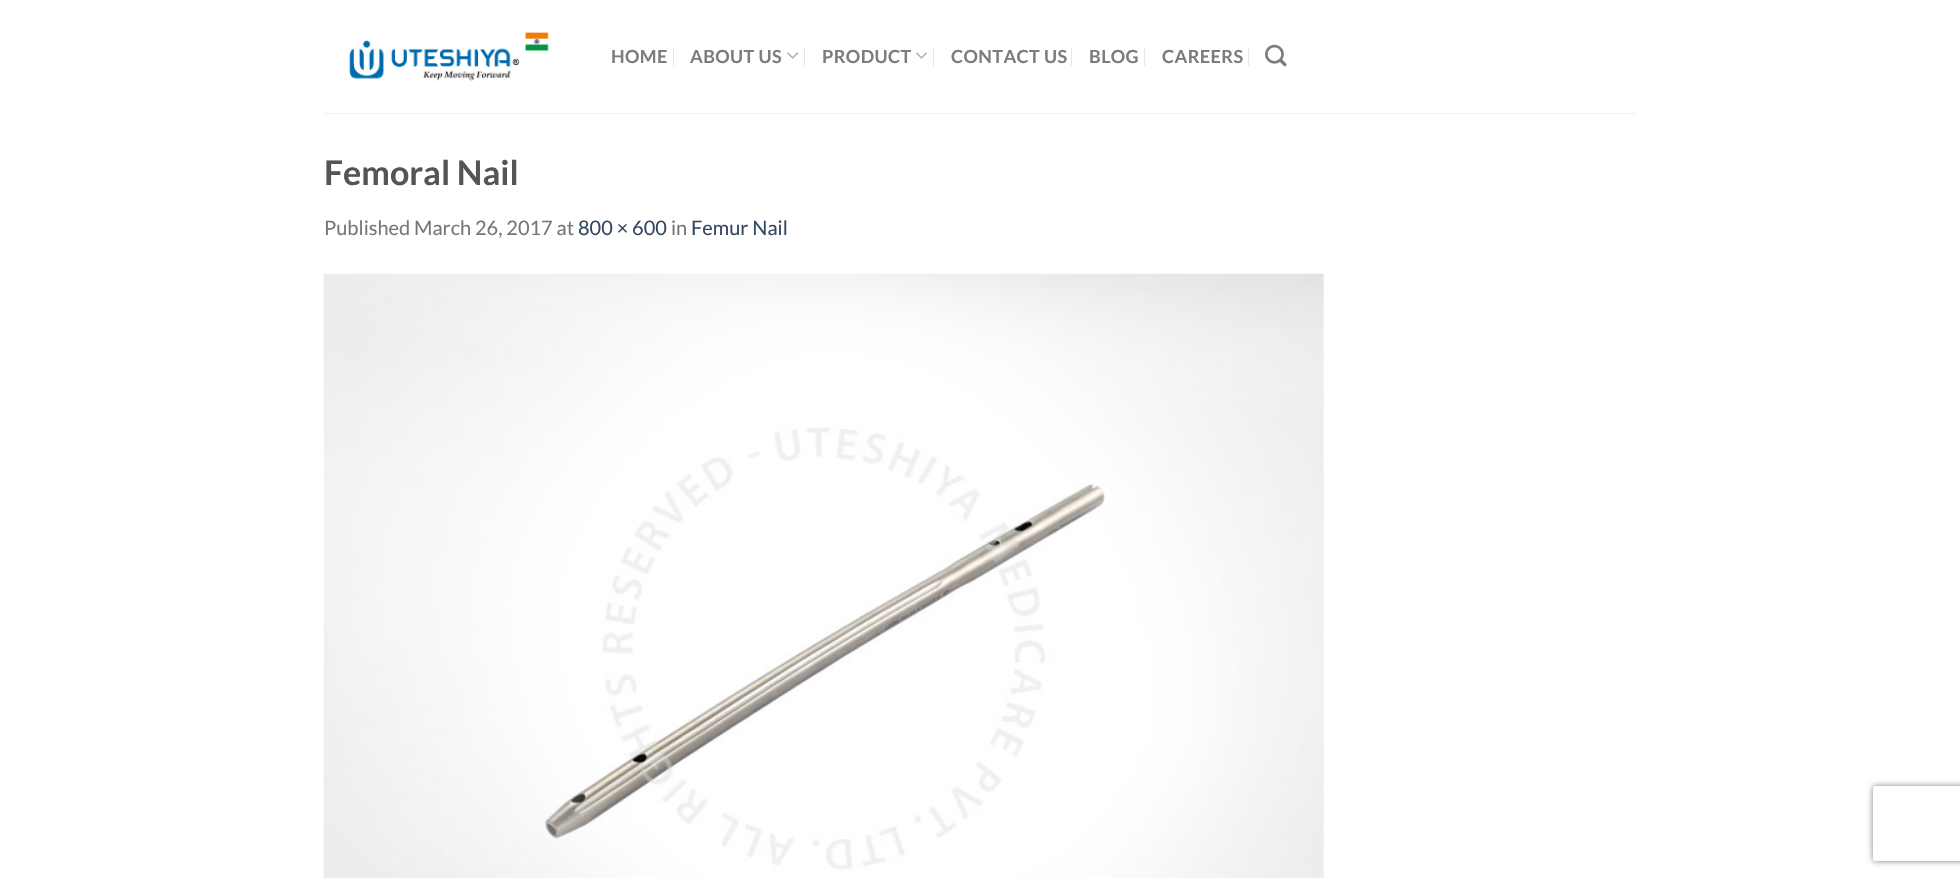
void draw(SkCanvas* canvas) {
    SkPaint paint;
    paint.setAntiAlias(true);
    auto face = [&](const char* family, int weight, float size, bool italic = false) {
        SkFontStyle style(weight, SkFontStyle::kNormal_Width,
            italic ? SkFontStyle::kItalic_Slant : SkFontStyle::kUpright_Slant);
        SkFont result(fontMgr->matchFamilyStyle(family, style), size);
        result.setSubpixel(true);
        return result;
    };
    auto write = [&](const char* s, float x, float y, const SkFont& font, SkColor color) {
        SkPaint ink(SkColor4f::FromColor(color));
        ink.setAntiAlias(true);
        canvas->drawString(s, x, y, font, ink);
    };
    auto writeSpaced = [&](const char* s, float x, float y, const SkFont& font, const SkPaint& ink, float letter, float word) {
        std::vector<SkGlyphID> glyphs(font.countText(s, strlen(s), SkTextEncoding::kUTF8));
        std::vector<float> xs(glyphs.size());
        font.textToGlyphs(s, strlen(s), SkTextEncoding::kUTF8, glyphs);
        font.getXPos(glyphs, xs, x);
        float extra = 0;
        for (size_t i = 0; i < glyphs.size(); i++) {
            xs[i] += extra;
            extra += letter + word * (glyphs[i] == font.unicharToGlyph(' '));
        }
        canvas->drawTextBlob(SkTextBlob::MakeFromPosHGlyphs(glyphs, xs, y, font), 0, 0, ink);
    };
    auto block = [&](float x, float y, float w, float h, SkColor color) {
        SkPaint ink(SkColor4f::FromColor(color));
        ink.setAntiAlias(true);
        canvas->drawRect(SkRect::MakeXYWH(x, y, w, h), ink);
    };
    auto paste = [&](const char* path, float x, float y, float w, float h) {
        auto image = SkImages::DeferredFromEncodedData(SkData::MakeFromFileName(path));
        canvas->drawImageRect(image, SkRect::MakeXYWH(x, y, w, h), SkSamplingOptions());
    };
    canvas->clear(SK_ColorWHITE);
    paste("pic1.png", 349, 31, 200, 50);
    auto kFont1 = face("Lato", 700, 18);
    paint.setColor(SkColorSetRGB(125, 125, 125));
    writeSpaced("HOME", 611, 63, kFont1, paint, 0.4f, 0);
    block(673, 48, 1, 18, SkColorSetRGB(230, 230, 230));
    writeSpaced("ABOUT US", 690, 63, kFont1, paint, 0.4f, 0);
    paste("pic2.png", 787, 52, 12, 7);
    block(804, 48, 1, 18, SkColorSetRGB(230, 230, 230));
    writeSpaced("PRODUCT", 822, 63, kFont1, paint, 0.4f, 0);
    paste("pic3.png", 916, 52, 11, 7);
    block(933, 48, 1, 18, SkColorSetRGB(230, 230, 230));
    writeSpaced("CONTACT US", 951, 63, kFont1, paint, 0.4f, 0);
    block(1071, 48, 1, 18, SkColorSetRGB(230, 230, 230));
    writeSpaced("BLOG", 1089, 63, kFont1, paint, 0.4f, 0);
    block(1144, 48, 1, 18, SkColorSetRGB(230, 230, 230));
    writeSpaced("CAREERS", 1162, 63, kFont1, paint, 0.4f, 0);
    block(1248, 48, 1, 18, SkColorSetRGB(230, 230, 230));
    paste("pic4.png", 1265, 44, 22, 23);
    block(324, 113, 1312, 1, SkColorSetRGB(241, 241, 241));
    auto kFont2 = face("Lato", 700, 34);
    write("Femoral Nail", 324, 185, kFont2, SkColorSetRGB(85, 85, 85));
    auto kFont3 = face("Lato", 400, 20);
    write("Published March 26, 2017 at", 324, 235, kFont3, SkColorSetRGB(119, 119, 119));
    write("800 × 600", 578, 235, kFont3, SkColorSetRGB(51, 72, 98));
    write("in", 671, 235, kFont3, SkColorSetRGB(119, 119, 119));
    write("Femur Nail", 691, 235, kFont3, SkColorSetRGB(51, 72, 98));
    paste("pic5.png", 323, 273, 1001, 605);
    canvas->save();
    canvas->clipPath(SkPathBuilder(SkPathFillType::kEvenOdd).moveTo(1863, 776).lineTo(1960, 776).lineTo(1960, 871).lineTo(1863, 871).close().moveTo(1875.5f, 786).lineTo(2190.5f, 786).cubicTo(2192, 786, 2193, 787, 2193, 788.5f).lineTo(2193, 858.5f).cubicTo(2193, 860, 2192, 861, 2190.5f, 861).lineTo(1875.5f, 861).cubicTo(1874, 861, 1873, 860, 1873, 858.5f).lineTo(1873, 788.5f).cubicTo(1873, 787, 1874, 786, 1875.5f, 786).close().detach(), true);
    paint.setColor(SkColorSetRGB(128, 128, 128));
    paint.setMaskFilter(SkMaskFilter::MakeBlur(kNormal_SkBlurStyle, 3));
    canvas->drawRoundRect(SkRect::MakeXYWH(1873, 786, 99, 75), 2.5f, 2.5f, paint);
    paint.setMaskFilter(nullptr);
    canvas->restore();
}
